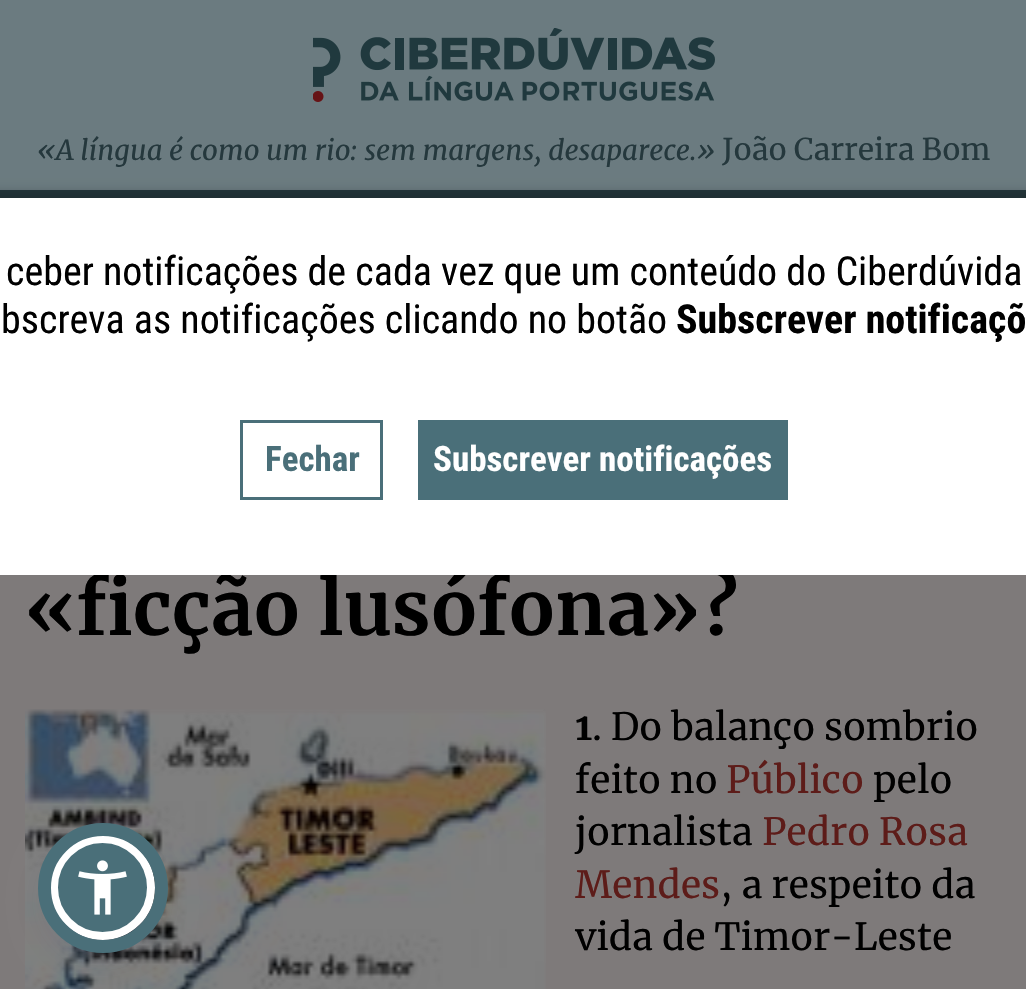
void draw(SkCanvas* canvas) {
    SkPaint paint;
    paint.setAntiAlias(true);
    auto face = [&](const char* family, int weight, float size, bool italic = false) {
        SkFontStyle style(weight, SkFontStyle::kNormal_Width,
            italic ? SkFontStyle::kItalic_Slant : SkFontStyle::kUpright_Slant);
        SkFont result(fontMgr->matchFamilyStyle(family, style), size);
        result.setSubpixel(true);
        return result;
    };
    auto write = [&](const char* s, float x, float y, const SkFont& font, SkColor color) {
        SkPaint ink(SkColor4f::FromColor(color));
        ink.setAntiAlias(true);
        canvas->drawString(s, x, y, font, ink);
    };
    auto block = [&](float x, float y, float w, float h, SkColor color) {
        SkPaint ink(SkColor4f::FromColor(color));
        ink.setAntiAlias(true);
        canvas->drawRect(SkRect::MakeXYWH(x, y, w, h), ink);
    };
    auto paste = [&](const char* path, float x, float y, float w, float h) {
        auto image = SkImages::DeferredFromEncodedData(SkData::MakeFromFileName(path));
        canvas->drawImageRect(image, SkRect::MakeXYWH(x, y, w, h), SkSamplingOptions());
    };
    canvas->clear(SkColorSetRGB(107, 123, 128));
    paste("pic1.png", 313, 28, 402, 74);
    auto kFont1 = face("Merriweather", 400, 27.5f, true);
    write("«A língua é como um rio: sem margens, desaparece.»", 37, 160, kFont1, SkColorSetRGB(37, 56, 61));
    auto kFont2 = face("Merriweather", 400, 30);
    write("João Carreira Bom", 722, 160, kFont2, SkColorSetRGB(37, 56, 61));
    block(0, 190, 1026, 8, SkColorSetRGB(37, 56, 61));
    block(0, 575, 1026, 414, SkColorSetRGB(126, 122, 122));
    paint.setColor(SkColorSetARGB(38, 0, 0, 0));
    paint.setMaskFilter(SkMaskFilter::MakeBlur(kNormal_SkBlurStyle, 4));
    canvas->drawRect(SkRect::MakeXYWH(-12, 190, 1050, 378), paint);
    paint.setMaskFilter(nullptr);
    auto kFont3 = face("Merriweather", 700, 75);
    write("«ficção lusófona»?", 25, 635, kFont3, SK_ColorBLACK);
    block(0, 198, 1026, 377, SK_ColorWHITE);
    auto kFont4 = face("Roboto Condensed", 400, 40);
    write("ceber notificações de cada vez que um conteúdo do Ciberdúvida", 6, 285, kFont4, SK_ColorBLACK);
    write("bscreva as notificações clicando no botão", 1, 333, kFont4, SK_ColorBLACK);
    auto kFont5 = face("Roboto Condensed", 700, 40);
    write("Subscrever notificaçõ", 676, 333, kFont5, SK_ColorBLACK);
    paint.setStyle(SkPaint::kStroke_Style);
    paint.setStrokeWidth(3);
    paint.setColor(SkColorSetRGB(74, 111, 121));
    canvas->drawRect(SkRect::MakeXYWH(241.5f, 421.5f, 140, 77), paint);
    auto kFont6 = face("Roboto Condensed", 700, 35);
    write("Fechar", 265, 471, kFont6, SkColorSetRGB(74, 111, 121));
    block(418, 420, 370, 80, SkColorSetRGB(74, 111, 121));
    write("Subscrever notificações", 433, 471, kFont6, SK_ColorWHITE);
    paste("pic2.png", 25, 709, 521, 280);
    auto kFont7 = face("Merriweather", 700, 37.5f);
    write("1", 575, 740, kFont7, SK_ColorBLACK);
    auto kFont8 = face("Merriweather", 400, 37.5f);
    write(". Do balanço sombrio", 592, 740, kFont8, SK_ColorBLACK);
    write("feito no", 575, 793, kFont8, SK_ColorBLACK);
    write("Público", 726, 793, kFont8, SkColorSetRGB(93, 28, 25));
    write("pelo", 873, 793, kFont8, SK_ColorBLACK);
    write("jornalista", 575, 845, kFont8, SK_ColorBLACK);
    write("Pedro Rosa", 762, 845, kFont8, SkColorSetRGB(93, 28, 25));
    write("Mendes", 575, 898, kFont8, SkColorSetRGB(93, 28, 25));
    write(", a respeito da", 720, 898, kFont8, SK_ColorBLACK);
    write("vida de Timor-Leste", 575, 950, kFont8, SK_ColorBLACK);
    paint.setStyle(SkPaint::kFill_Style);
    paint.setColor(SkColorSetARGB(51, 93, 100, 148));
    paint.setMaskFilter(SkMaskFilter::MakeBlur(kNormal_SkBlurStyle, 5));
    canvas->drawRoundRect(SkRect::MakeXYWH(50, 840, 105, 105), 52.5f, 52.5f, paint);
    paint.setMaskFilter(nullptr);
    paint.setColor(SkColorSetARGB(38, 37, 44, 97));
    paint.setMaskFilter(SkMaskFilter::MakeBlur(kNormal_SkBlurStyle, 19));
    canvas->drawRoundRect(SkRect::MakeXYWH(50, 848, 105, 105), 52.5f, 52.5f, paint);
    paint.setMaskFilter(nullptr);
    paint.setColor(SkColorSetRGB(74, 111, 121));
    canvas->drawCircle(102.5f, 887.5f, 48.5f, paint);
    paint.setStyle(SkPaint::kStroke_Style);
    paint.setStrokeWidth(8);
    paint.setColor(SK_ColorWHITE);
    canvas->drawCircle(102.5f, 887.5f, 48.5f, paint);
    paint.setStrokeWidth(13);
    paint.setColor(SkColorSetRGB(74, 111, 121));
    canvas->drawCircle(103, 888, 58.5f, paint);
    paste("pic3.png", 78, 860, 49, 55);
}
